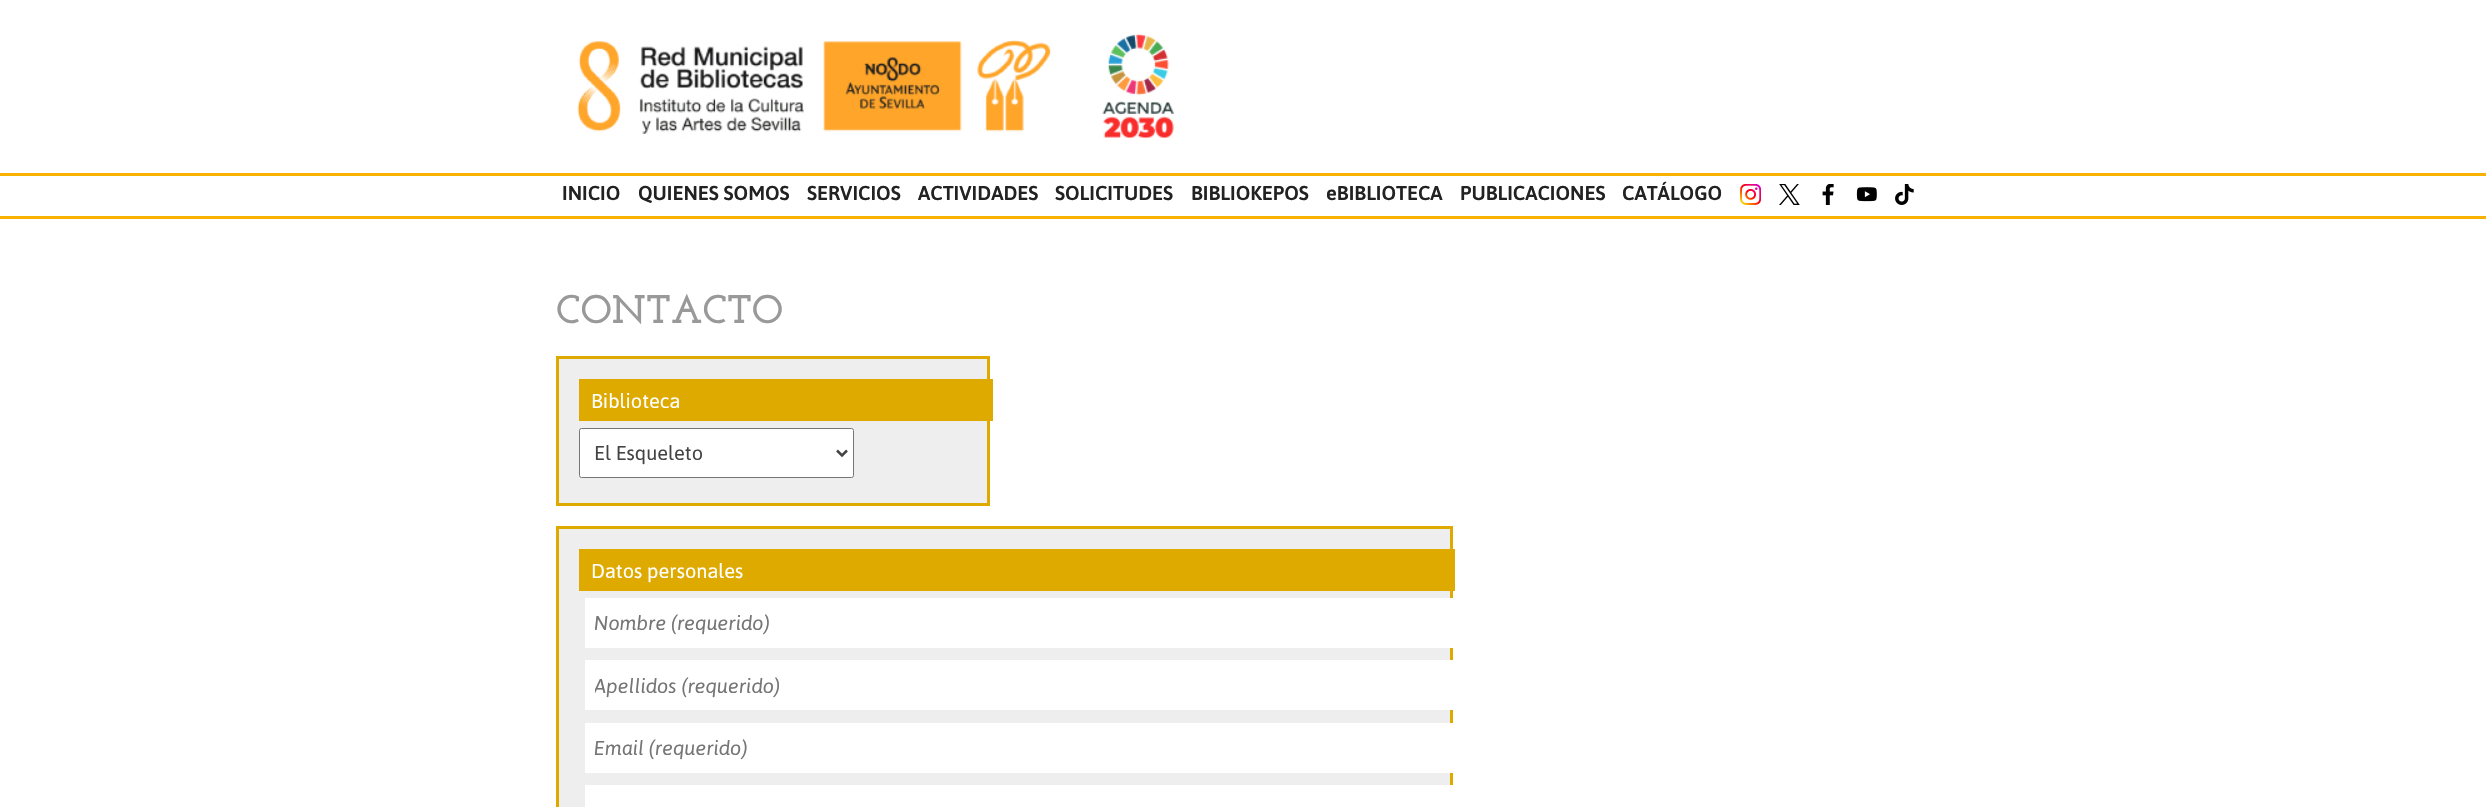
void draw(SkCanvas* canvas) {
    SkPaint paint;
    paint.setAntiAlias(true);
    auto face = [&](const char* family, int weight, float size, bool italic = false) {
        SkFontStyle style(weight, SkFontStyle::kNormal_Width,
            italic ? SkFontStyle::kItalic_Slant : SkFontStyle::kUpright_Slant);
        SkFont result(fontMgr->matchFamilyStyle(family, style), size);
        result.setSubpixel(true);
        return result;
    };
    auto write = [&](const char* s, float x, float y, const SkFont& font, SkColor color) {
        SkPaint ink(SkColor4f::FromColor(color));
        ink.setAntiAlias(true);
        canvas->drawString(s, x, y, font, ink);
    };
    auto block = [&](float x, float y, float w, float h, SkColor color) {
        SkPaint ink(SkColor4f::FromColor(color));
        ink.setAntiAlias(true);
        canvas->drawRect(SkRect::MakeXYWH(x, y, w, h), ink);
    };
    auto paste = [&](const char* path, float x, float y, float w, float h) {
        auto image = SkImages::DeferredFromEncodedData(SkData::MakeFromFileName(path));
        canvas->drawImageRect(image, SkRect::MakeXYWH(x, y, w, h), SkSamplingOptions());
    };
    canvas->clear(SK_ColorWHITE);
    paste("pic1.png", 577, 33, 597, 106);
    block(0, 173, 2486, 3, SkColorSetRGB(249, 177, 0));
    block(0, 216, 2486, 3, SkColorSetRGB(249, 177, 0));
    auto kFont1 = face("Asap", 500, 20);
    write("INICIO", 562, 200, kFont1, SkColorSetRGB(34, 34, 34));
    write("QUIENES SOMOS", 638, 200, kFont1, SkColorSetRGB(34, 34, 34));
    write("SERVICIOS", 807, 200, kFont1, SkColorSetRGB(34, 34, 34));
    write("ACTIVIDADES", 918, 200, kFont1, SkColorSetRGB(34, 34, 34));
    write("SOLICITUDES", 1055, 200, kFont1, SkColorSetRGB(34, 34, 34));
    write("BIBLIOKEPOS", 1191, 200, kFont1, SkColorSetRGB(34, 34, 34));
    write("eBIBLIOTECA", 1326, 200, kFont1, SkColorSetRGB(34, 34, 34));
    write("PUBLICACIONES", 1460, 200, kFont1, SkColorSetRGB(34, 34, 34));
    write("CATÁLOGO", 1622, 200, kFont1, SkColorSetRGB(34, 34, 34));
    paste("pic2.png", 1740, 184, 21, 21);
    paste("pic3.png", 1779, 184, 21, 21);
    paste("pic4.png", 1822, 184, 12, 21);
    paste("pic5.png", 1856, 187, 21, 15);
    paste("pic6.png", 1895, 184, 19, 21);
    auto kFont2 = face("Josefin Slab", 700, 40);
    write("CONTACTO", 556, 323, kFont2, SkColorSetRGB(153, 153, 153));
    paint.setColor(SkColorSetRGB(238, 238, 238));
    canvas->drawRect(SkRect::MakeXYWH(557.5f, 357.5f, 431, 147), paint);
    paint.setStyle(SkPaint::kStroke_Style);
    paint.setStrokeWidth(3);
    paint.setColor(SkColorSetRGB(223, 170, 0));
    canvas->drawRect(SkRect::MakeXYWH(557.5f, 357.5f, 431, 147), paint);
    block(579, 379, 414, 42, SkColorSetRGB(223, 170, 0));
    auto kFont3 = face("Asap", 400, 20);
    write("Biblioteca", 591, 408, kFont3, SK_ColorWHITE);
    paint.setStyle(SkPaint::kFill_Style);
    paint.setColor(SK_ColorWHITE);
    canvas->drawRoundRect(SkRect::MakeXYWH(579.5f, 428.5f, 274, 49), 2, 2, paint);
    paint.setStyle(SkPaint::kStroke_Style);
    paint.setStrokeWidth(1);
    paint.setColor(SkColorSetRGB(118, 118, 118));
    canvas->drawRoundRect(SkRect::MakeXYWH(579.5f, 428.5f, 274, 49), 2, 2, paint);
    paint.setStrokeWidth(2.5f);
    paint.setColor(SkColorSetRGB(68, 68, 68));
    canvas->drawPath(SkPathBuilder().moveTo(837, 450.5f).lineTo(842, 455.5f).lineTo(847, 450.5f).detach(), paint);
    write("El Esqueleto", 594, 460, kFont3, SkColorSetRGB(68, 68, 68));
    paint.setStyle(SkPaint::kFill_Style);
    paint.setColor(SkColorSetRGB(238, 238, 238));
    canvas->drawRect(SkRect::MakeXYWH(557.5f, 527.5f, 894, 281), paint);
    paint.setStyle(SkPaint::kStroke_Style);
    paint.setStrokeWidth(3);
    paint.setColor(SkColorSetRGB(223, 170, 0));
    canvas->drawRect(SkRect::MakeXYWH(557.5f, 527.5f, 894, 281), paint);
    block(579, 549, 876, 42, SkColorSetRGB(223, 170, 0));
    write("Datos personales", 591, 578, kFont3, SK_ColorWHITE);
    block(585, 598, 868, 50, SK_ColorWHITE);
    auto kFont4 = face("Asap", 400, 20, true);
    write("Nombre (requerido)", 594, 630, kFont4, SkColorSetRGB(117, 117, 117));
    block(585, 660, 868, 50, SK_ColorWHITE);
    canvas->save();
    canvas->clipRect(SkRect::MakeXYWH(595, 673, 851, 25));
    write("Apellidos (requerido)", 594, 693, kFont4, SkColorSetRGB(117, 117, 117));
    canvas->restore();
    block(585, 723, 868, 50, SK_ColorWHITE);
    write("Email (requerido)", 594, 755, kFont4, SkColorSetRGB(117, 117, 117));
    block(585, 785, 868, 22, SK_ColorWHITE);
}
